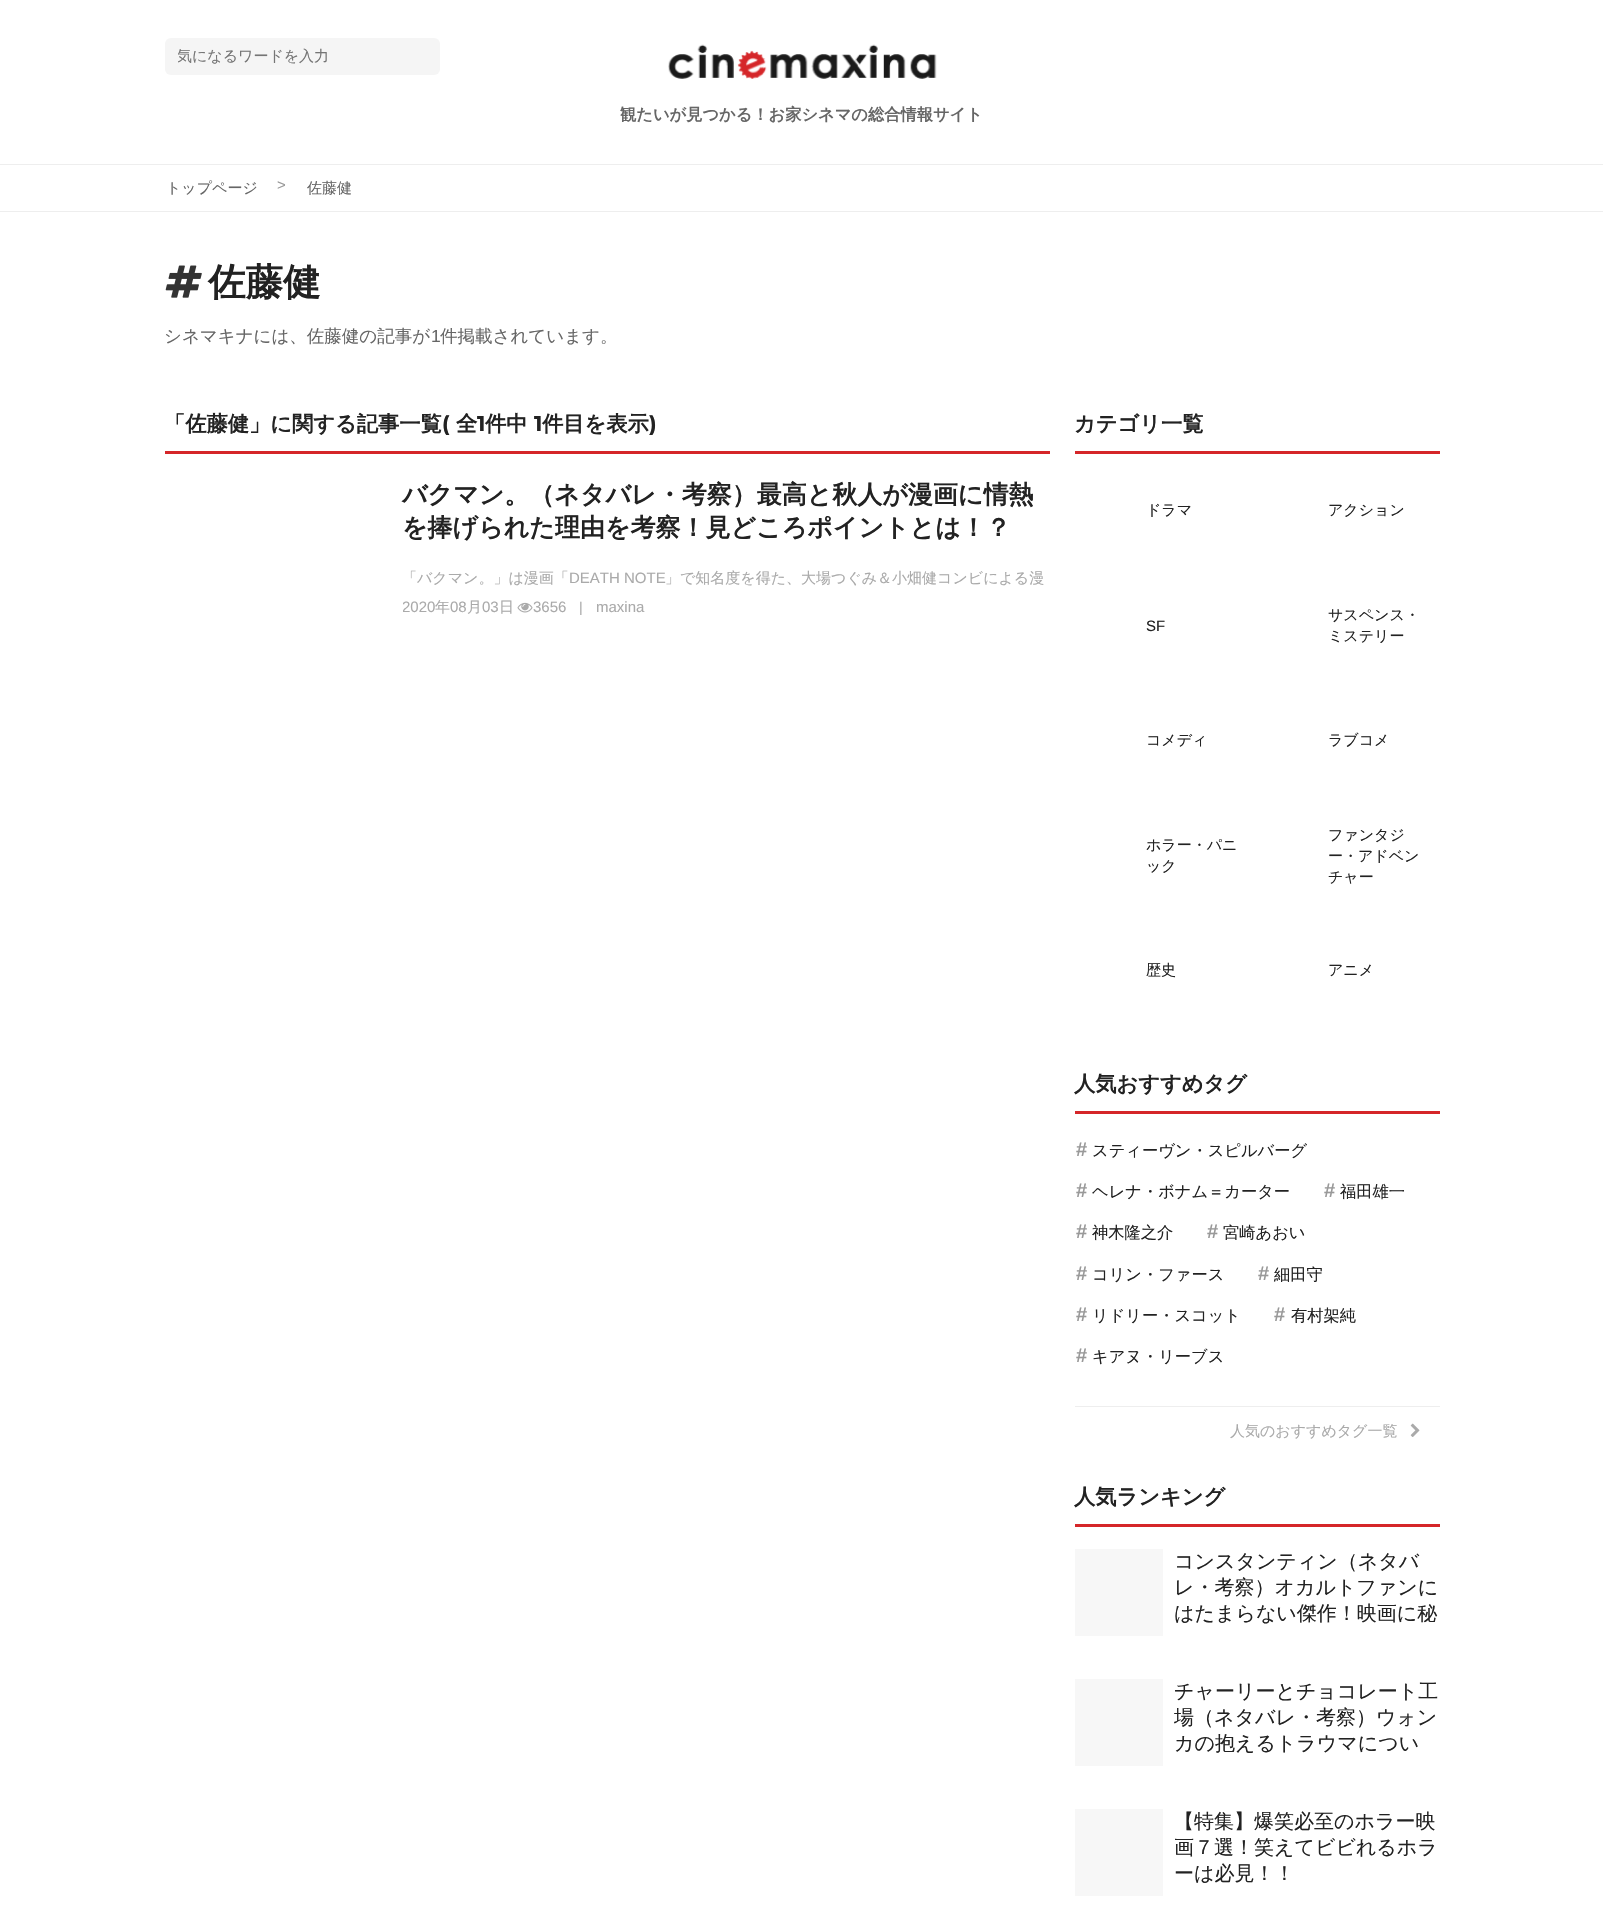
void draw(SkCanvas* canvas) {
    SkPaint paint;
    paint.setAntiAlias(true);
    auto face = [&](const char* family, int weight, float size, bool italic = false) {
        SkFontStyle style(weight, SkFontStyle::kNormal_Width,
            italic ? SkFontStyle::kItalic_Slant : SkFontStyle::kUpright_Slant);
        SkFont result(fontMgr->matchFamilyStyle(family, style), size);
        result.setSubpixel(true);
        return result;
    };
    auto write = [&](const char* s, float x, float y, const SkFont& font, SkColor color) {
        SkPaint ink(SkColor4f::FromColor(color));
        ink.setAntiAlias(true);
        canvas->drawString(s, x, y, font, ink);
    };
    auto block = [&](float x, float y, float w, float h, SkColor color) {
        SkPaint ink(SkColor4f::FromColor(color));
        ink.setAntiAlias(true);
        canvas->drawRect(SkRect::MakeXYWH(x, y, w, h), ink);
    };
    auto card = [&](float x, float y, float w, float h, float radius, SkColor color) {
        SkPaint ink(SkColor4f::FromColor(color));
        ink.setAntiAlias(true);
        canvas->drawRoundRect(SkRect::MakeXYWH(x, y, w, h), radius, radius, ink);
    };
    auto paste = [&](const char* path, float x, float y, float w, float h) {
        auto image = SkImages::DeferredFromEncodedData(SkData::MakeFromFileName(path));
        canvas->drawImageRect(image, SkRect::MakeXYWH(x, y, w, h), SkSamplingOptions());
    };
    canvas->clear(SK_ColorWHITE);
    card(165, 38, 275, 37, 6, SkColorSetRGB(245, 245, 245));
    canvas->save();
    canvas->clipRect(SkRect::MakeXYWH(178, 46, 225, 22));
    auto kFont1 = face("WenQuanYi Zen Hei", 500, 15);
    write("気になるワードを入力", 177, 61, kFont1, SkColorSetRGB(117, 117, 117));
    canvas->restore();
    paste("pic1.png", 668, 44, 269, 35);
    auto kFont2 = face("WenQuanYi Zen Hei", 700, 16.25f);
    write("観たいが見つかる！お家シネマの総合情報サイト", 620, 120, kFont2, SkColorSetRGB(102, 102, 102));
    block(0, 164, 1603, 1, SkColorSetRGB(238, 238, 238));
    block(0, 211, 1603, 1, SkColorSetRGB(238, 238, 238));
    write("トップページ", 166, 193, kFont1, SkColorSetRGB(102, 102, 102));
    auto kFont3 = face("Liberation Sans", 400, 15);
    write(">", 277, 190, kFont3, SkColorSetRGB(153, 153, 153));
    write("佐藤健", 307, 193, kFont1, SkColorSetRGB(102, 102, 102));
    paste("pic2.png", 165, 265, 37, 33);
    auto kFont4 = face("WenQuanYi Zen Hei", 700, 37.5f);
    write("佐藤健", 208, 295, kFont4, SkColorSetRGB(34, 34, 34));
    auto kFont5 = face("WenQuanYi Zen Hei", 500, 17.5f);
    write("シネマキナには、佐藤健の記事が", 164, 342, kFont5, SkColorSetRGB(102, 102, 102));
    auto kFont6 = face("Liberation Sans", 400, 17.5f);
    write("1", 431, 342, kFont6, SkColorSetRGB(102, 102, 102));
    write("件掲載されています。", 440, 342, kFont5, SkColorSetRGB(102, 102, 102));
    block(165, 451, 885, 3, SkColorSetRGB(213, 38, 41));
    auto kFont7 = face("WenQuanYi Zen Hei", 700, 21.25f);
    write("「佐藤健」に関する記事一覧", 164, 431, kFont7, SkColorSetRGB(34, 34, 34));
    auto kFont8 = face("Montserrat", 700, 21.25f);
    write("(", 442, 431, kFont8, SkColorSetRGB(34, 34, 34));
    write("全", 456, 431, kFont7, SkColorSetRGB(34, 34, 34));
    write("1", 477, 431, kFont8, SkColorSetRGB(34, 34, 34));
    write("件中", 485, 431, kFont7, SkColorSetRGB(34, 34, 34));
    write("1", 534, 431, kFont8, SkColorSetRGB(34, 34, 34));
    write("件目を表示", 542, 431, kFont7, SkColorSetRGB(34, 34, 34));
    write(")", 649, 431, kFont8, SkColorSetRGB(34, 34, 34));
    auto kFont9 = face("WenQuanYi Zen Hei", 700, 25);
    write("バクマン。（ネタバレ・考察）最高と秋人が漫画に情熱", 402, 503, kFont9, SkColorSetRGB(34, 34, 34));
    write("を捧げられた理由を考察！見どころポイントとは！？", 402, 536, kFont9, SkColorSetRGB(34, 34, 34));
    write("「バクマン。」は漫画「", 402, 583, kFont1, SkColorSetRGB(170, 170, 170));
    write("DEATH NOTE", 569, 583, kFont3, SkColorSetRGB(170, 170, 170));
    write("」で知名度を得た、大場つぐみ＆小畑健コンビによる漫", 665, 583, kFont1, SkColorSetRGB(170, 170, 170));
    canvas->save();
    canvas->clipRect(SkRect::MakeXYWH(403, 598, 647, 21));
    write("2020", 402, 612, kFont3, SkColorSetRGB(170, 170, 170));
    canvas->restore();
    write("年", 435, 612, kFont1, SkColorSetRGB(170, 170, 170));
    write("08", 450, 612, kFont3, SkColorSetRGB(170, 170, 170));
    write("月", 467, 612, kFont1, SkColorSetRGB(170, 170, 170));
    write("03", 482, 612, kFont3, SkColorSetRGB(170, 170, 170));
    write("日", 499, 612, kFont1, SkColorSetRGB(170, 170, 170));
    paste("pic3.png", 517, 602, 16, 11);
    write("3656", 533, 612, kFont3, SkColorSetRGB(170, 170, 170));
    auto kFont10 = face("Liberation Sans", 400, 14);
    write("|", 579, 612, kFont10, SkColorSetRGB(170, 170, 170));
    write("maxina", 596, 612, kFont3, SkColorSetRGB(170, 170, 170));
    block(1075, 451, 365, 3, SkColorSetRGB(213, 38, 41));
    write("カテゴリ一覧", 1074, 431, kFont7, SkColorSetRGB(34, 34, 34));
    write("ドラマ", 1146, 515, kFont1, SkColorSetRGB(34, 34, 34));
    write("アクション", 1328, 515, kFont1, SkColorSetRGB(34, 34, 34));
    write("SF", 1146, 631, kFont3, SkColorSetRGB(34, 34, 34));
    write("サスペンス・", 1328, 620, kFont1, SkColorSetRGB(34, 34, 34));
    write("ミステリー", 1328, 641, kFont1, SkColorSetRGB(34, 34, 34));
    write("コメディ", 1146, 745, kFont1, SkColorSetRGB(34, 34, 34));
    write("ラブコメ", 1328, 745, kFont1, SkColorSetRGB(34, 34, 34));
    write("ホラー・パニ", 1146, 850, kFont1, SkColorSetRGB(34, 34, 34));
    write("ック", 1146, 871, kFont1, SkColorSetRGB(34, 34, 34));
    write("ファンタジ", 1328, 840, kFont1, SkColorSetRGB(34, 34, 34));
    write("ー・アドベン", 1328, 861, kFont1, SkColorSetRGB(34, 34, 34));
    write("チャー", 1328, 882, kFont1, SkColorSetRGB(34, 34, 34));
    write("歴史", 1146, 975, kFont1, SkColorSetRGB(34, 34, 34));
    write("アニメ", 1328, 975, kFont1, SkColorSetRGB(34, 34, 34));
    block(1075, 1111, 365, 3, SkColorSetRGB(213, 38, 41));
    write("人気おすすめタグ", 1074, 1091, kFont7, SkColorSetRGB(34, 34, 34));
    block(1075, 1406, 365, 1, SkColorSetRGB(238, 238, 238));
    auto kFont11 = face("Liberation Sans", 700, 20);
    write("#", 1076, 1156, kFont11, SkColorSetRGB(153, 153, 153));
    auto kFont12 = face("WenQuanYi Zen Hei", 500, 16.25f);
    write("スティーヴン・スピルバーグ", 1092, 1156, kFont12, SkColorSetRGB(34, 34, 34));
    write("#", 1076, 1197, kFont11, SkColorSetRGB(153, 153, 153));
    write("ヘレナ・ボナム＝カーター", 1092, 1197, kFont12, SkColorSetRGB(34, 34, 34));
    write("#", 1324, 1197, kFont11, SkColorSetRGB(153, 153, 153));
    write("福田雄一", 1340, 1197, kFont12, SkColorSetRGB(34, 34, 34));
    write("#", 1076, 1238, kFont11, SkColorSetRGB(153, 153, 153));
    write("神木隆之介", 1092, 1238, kFont12, SkColorSetRGB(34, 34, 34));
    write("#", 1207, 1238, kFont11, SkColorSetRGB(153, 153, 153));
    write("宮崎あおい", 1223, 1238, kFont12, SkColorSetRGB(34, 34, 34));
    write("#", 1076, 1280, kFont11, SkColorSetRGB(153, 153, 153));
    write("コリン・ファース", 1092, 1280, kFont12, SkColorSetRGB(34, 34, 34));
    write("#", 1258, 1280, kFont11, SkColorSetRGB(153, 153, 153));
    write("細田守", 1274, 1280, kFont12, SkColorSetRGB(34, 34, 34));
    write("#", 1076, 1321, kFont11, SkColorSetRGB(153, 153, 153));
    write("リドリー・スコット", 1092, 1321, kFont12, SkColorSetRGB(34, 34, 34));
    write("#", 1274, 1321, kFont11, SkColorSetRGB(153, 153, 153));
    write("有村架純", 1291, 1321, kFont12, SkColorSetRGB(34, 34, 34));
    write("#", 1076, 1362, kFont11, SkColorSetRGB(153, 153, 153));
    write("キアヌ・リーブス", 1092, 1362, kFont12, SkColorSetRGB(34, 34, 34));
    write("人気のおすすめタグ一覧", 1230, 1436, kFont1, SkColorSetRGB(170, 170, 170));
    paste("pic4.png", 1410, 1423, 10, 14);
    block(1075, 1524, 365, 3, SkColorSetRGB(213, 38, 41));
    write("人気ランキング", 1074, 1504, kFont7, SkColorSetRGB(34, 34, 34));
    block(1075, 1549, 88, 87, SkColorSetRGB(247, 247, 247));
    auto kFont13 = face("WenQuanYi Zen Hei", 500, 20);
    write("コンスタンティン（ネタバ", 1174, 1568, kFont13, SkColorSetRGB(34, 34, 34));
    write("レ・考察）オカルトファンに", 1174, 1594, kFont13, SkColorSetRGB(34, 34, 34));
    write("はたまらない傑作！映画に秘", 1174, 1620, kFont13, SkColorSetRGB(34, 34, 34));
    block(1075, 1679, 88, 87, SkColorSetRGB(247, 247, 247));
    write("チャーリーとチョコレート工", 1174, 1698, kFont13, SkColorSetRGB(34, 34, 34));
    write("場（ネタバレ・考察）ウォン", 1174, 1724, kFont13, SkColorSetRGB(34, 34, 34));
    write("カの抱えるトラウマについ", 1174, 1750, kFont13, SkColorSetRGB(34, 34, 34));
    block(1075, 1809, 88, 87, SkColorSetRGB(247, 247, 247));
    write("【特集】爆笑必至のホラー映", 1174, 1828, kFont13, SkColorSetRGB(34, 34, 34));
    write("画７選！笑えてビビれるホラ", 1174, 1854, kFont13, SkColorSetRGB(34, 34, 34));
    write("ーは必見！！", 1174, 1880, kFont13, SkColorSetRGB(34, 34, 34));
}
